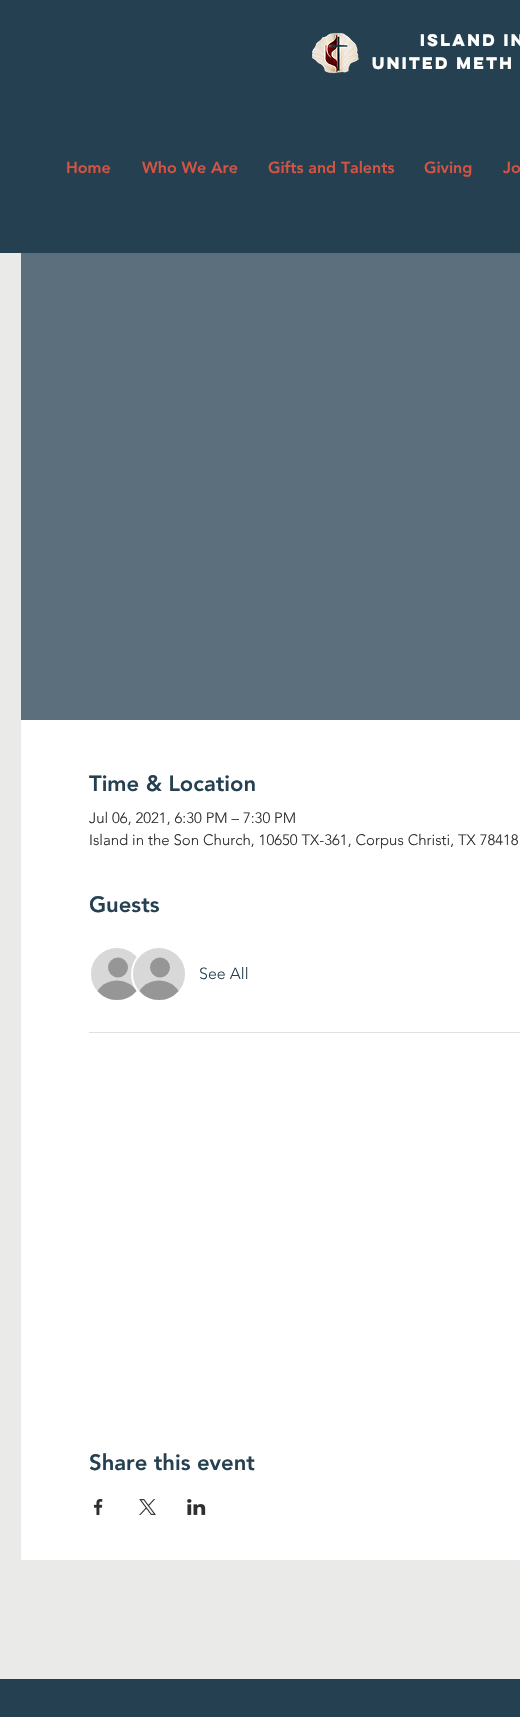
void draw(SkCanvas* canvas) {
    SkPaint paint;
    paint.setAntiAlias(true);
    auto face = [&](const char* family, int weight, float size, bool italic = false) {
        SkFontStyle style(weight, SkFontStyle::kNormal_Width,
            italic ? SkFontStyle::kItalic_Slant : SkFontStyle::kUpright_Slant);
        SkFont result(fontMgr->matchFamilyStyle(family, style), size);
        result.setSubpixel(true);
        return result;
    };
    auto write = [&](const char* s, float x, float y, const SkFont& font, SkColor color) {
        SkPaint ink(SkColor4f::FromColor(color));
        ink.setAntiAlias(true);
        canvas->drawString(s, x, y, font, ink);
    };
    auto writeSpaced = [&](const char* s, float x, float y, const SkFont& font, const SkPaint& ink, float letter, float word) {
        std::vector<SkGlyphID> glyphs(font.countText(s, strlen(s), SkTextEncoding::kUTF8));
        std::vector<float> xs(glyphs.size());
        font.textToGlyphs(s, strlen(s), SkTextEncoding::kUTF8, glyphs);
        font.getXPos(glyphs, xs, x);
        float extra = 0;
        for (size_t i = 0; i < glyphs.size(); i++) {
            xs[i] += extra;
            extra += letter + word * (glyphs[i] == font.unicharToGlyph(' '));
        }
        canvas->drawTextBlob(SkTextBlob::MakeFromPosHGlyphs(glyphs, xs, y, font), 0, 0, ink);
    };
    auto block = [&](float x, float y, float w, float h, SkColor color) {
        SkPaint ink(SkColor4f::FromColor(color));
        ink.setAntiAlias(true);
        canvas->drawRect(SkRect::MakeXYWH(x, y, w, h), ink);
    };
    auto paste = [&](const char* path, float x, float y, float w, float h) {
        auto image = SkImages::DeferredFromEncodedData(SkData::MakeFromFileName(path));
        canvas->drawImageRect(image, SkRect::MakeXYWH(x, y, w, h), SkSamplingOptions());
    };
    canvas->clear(SkColorSetRGB(234, 234, 232));
    block(0, 0, 520, 253, SkColorSetRGB(37, 65, 81));
    paste("pic1.png", 311, 32, 48, 42);
    auto kFont1 = face("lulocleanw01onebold", 700, 15);
    paint.setColor(SK_ColorWHITE);
    writeSpaced("ISLAND IN", 420, 46, kFont1, paint, -1, 0);
    writeSpaced("UNITED METH", 372, 69, kFont1, paint, -1, 0);
    auto kFont2 = face("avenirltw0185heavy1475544", 900, 16);
    write("Home", 66, 173, kFont2, SkColorSetRGB(213, 83, 66));
    write("Who We Are", 142, 173, kFont2, SkColorSetRGB(213, 83, 66));
    write("Gifts and Talents", 268, 173, kFont2, SkColorSetRGB(213, 83, 66));
    write("Giving", 424, 173, kFont2, SkColorSetRGB(213, 83, 66));
    write("Jo", 503, 173, kFont2, SkColorSetRGB(213, 83, 66));
    block(21, 253, 499, 467, SkColorSetRGB(91, 112, 124));
    block(21, 720, 499, 840, SK_ColorWHITE);
    auto kFont3 = face("avenirltw0185heavy1475544", 900, 22);
    write("Time & Location", 89, 791, kFont3, SkColorSetRGB(37, 65, 81));
    auto kFont4 = face("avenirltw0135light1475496", 300, 15);
    write("Jul 06, 2021, 6:30 PM – 7:30 PM", 89, 823, kFont4, SkColorSetRGB(47, 47, 46));
    write("Island in the Son Church, 10650 TX-361, Corpus Christi, TX 78418", 89, 845, kFont4, SkColorSetRGB(47, 47, 46));
    write("Guests", 89, 912, kFont3, SkColorSetRGB(37, 65, 81));
    paint.setColor(SkColorSetRGB(216, 216, 216));
    canvas->drawCircle(117, 974, 27, paint);
    paint.setStyle(SkPaint::kStroke_Style);
    paint.setStrokeWidth(2);
    paint.setColor(SK_ColorWHITE);
    canvas->drawCircle(117, 974, 27, paint);
    paint.setStyle(SkPaint::kFill_Style);
    paint.setColor(SkColorSetRGB(150, 150, 150));
    canvas->drawCircle(118, 967.5f, 10, paint);
    canvas->drawPath(SkPathBuilder().moveTo(136.5f, 991).cubicTo(126.5f, 1003, 107.5f, 1003, 97.5f, 991).cubicTo(106, 977, 128, 977, 136.5f, 991).close().detach(), paint);
    paint.setColor(SkColorSetRGB(216, 216, 216));
    canvas->drawCircle(159, 974, 27, paint);
    paint.setStyle(SkPaint::kStroke_Style);
    paint.setColor(SK_ColorWHITE);
    canvas->drawCircle(159, 974, 27, paint);
    paint.setStyle(SkPaint::kFill_Style);
    paint.setColor(SkColorSetRGB(150, 150, 150));
    canvas->drawCircle(160, 967.5f, 10, paint);
    canvas->drawPath(SkPathBuilder().moveTo(178.5f, 991).cubicTo(168.5f, 1003, 149.5f, 1003, 139.5f, 991).cubicTo(148, 977, 170, 977, 178.5f, 991).close().detach(), paint);
    auto kFont5 = face("avenirltw0135light1475496", 300, 16);
    write("See All", 199, 979, kFont5, SkColorSetRGB(37, 65, 81));
    block(89, 1032, 431, 1, SkColorSetRGB(224, 224, 224));
    write("Share this event", 89, 1470, kFont3, SkColorSetRGB(37, 65, 81));
    paste("pic2.png", 94, 1499, 9, 16);
    paste("pic3.png", 139, 1499, 17, 16);
    paste("pic4.png", 187, 1499, 19, 16);
    block(0, 1679, 520, 38, SkColorSetRGB(37, 65, 81));
}
